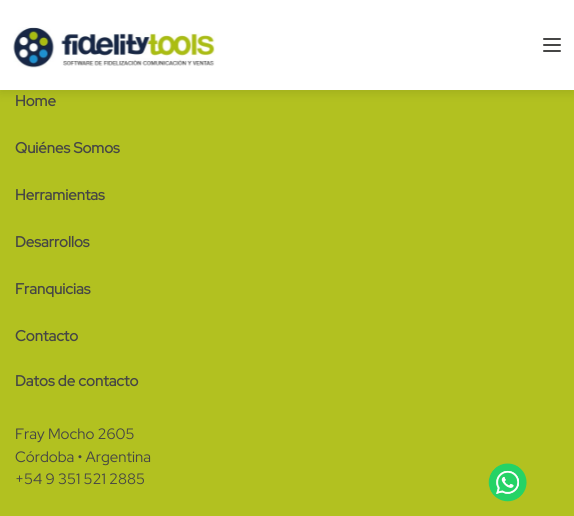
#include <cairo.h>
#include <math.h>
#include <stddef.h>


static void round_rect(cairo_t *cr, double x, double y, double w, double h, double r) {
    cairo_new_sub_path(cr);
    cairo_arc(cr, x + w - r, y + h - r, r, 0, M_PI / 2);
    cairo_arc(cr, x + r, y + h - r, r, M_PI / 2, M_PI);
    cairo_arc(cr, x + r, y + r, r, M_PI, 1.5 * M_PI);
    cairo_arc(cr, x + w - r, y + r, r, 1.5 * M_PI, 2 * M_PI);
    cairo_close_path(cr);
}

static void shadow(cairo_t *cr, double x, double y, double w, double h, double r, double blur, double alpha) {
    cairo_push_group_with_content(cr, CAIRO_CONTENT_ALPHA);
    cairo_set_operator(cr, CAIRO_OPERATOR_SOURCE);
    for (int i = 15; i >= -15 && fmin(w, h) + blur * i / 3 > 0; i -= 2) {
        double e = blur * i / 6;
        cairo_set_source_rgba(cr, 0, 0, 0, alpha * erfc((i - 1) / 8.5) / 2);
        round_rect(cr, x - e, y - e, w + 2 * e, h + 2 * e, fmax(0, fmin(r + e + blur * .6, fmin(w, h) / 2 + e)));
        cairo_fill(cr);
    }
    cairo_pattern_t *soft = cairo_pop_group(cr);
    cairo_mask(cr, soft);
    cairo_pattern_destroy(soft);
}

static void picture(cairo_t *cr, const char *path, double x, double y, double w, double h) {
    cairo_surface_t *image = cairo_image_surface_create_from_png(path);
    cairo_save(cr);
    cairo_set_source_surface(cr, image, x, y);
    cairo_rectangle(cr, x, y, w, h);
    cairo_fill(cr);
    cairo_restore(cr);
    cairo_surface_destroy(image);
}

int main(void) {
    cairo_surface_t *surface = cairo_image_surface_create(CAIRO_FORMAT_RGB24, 574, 516);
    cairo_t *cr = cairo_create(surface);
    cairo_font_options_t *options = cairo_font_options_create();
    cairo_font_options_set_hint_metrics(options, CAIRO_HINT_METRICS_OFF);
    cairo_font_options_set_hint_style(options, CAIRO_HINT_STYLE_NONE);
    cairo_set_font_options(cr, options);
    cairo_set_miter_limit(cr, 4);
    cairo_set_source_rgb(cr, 0.698, 0.757, 0.125);
    cairo_paint(cr);
    cairo_set_source_rgb(cr, 0, 0, 0);
    shadow(cr, 0, 3, 574, 90, 0, 5, 0.1);
    cairo_set_source_rgb(cr, 1, 1, 1);
    cairo_rectangle(cr, 0, 0, 574, 90);
    cairo_fill(cr);
    picture(cr, "img1.png", 13, 27, 202, 41);
    cairo_set_source_rgb(cr, 0.275, 0.275, 0.271);
    round_rect(cr, 543, 38, 18, 2, 1);
    cairo_fill(cr);
    round_rect(cr, 543, 44, 18, 2, 1);
    cairo_fill(cr);
    round_rect(cr, 543, 50, 18, 2, 1);
    cairo_fill(cr);
    cairo_select_font_face(cr, "Red Hat Display", CAIRO_FONT_SLANT_NORMAL, CAIRO_FONT_WEIGHT_BOLD);
    cairo_set_font_size(cr, 15);
    cairo_move_to(cr, 15, 106);
    cairo_show_text(cr, "Home");
    cairo_move_to(cr, 15, 153);
    cairo_show_text(cr, "Quiénes Somos");
    cairo_move_to(cr, 15, 200);
    cairo_show_text(cr, "Herramientas");
    cairo_move_to(cr, 15, 247);
    cairo_show_text(cr, "Desarrollos");
    cairo_move_to(cr, 15, 294);
    cairo_show_text(cr, "Franquicias");
    cairo_move_to(cr, 15, 341);
    cairo_show_text(cr, "Contacto");
    cairo_move_to(cr, 15, 386);
    cairo_show_text(cr, "Datos de contacto");
    cairo_select_font_face(cr, "Red Hat Display", CAIRO_FONT_SLANT_NORMAL, CAIRO_FONT_WEIGHT_NORMAL);
    cairo_move_to(cr, 15, 439);
    cairo_show_text(cr, "Fray Mocho 2605");
    cairo_move_to(cr, 15, 462);
    cairo_show_text(cr, "Córdoba • Argentina");
    cairo_move_to(cr, 15, 484);
    cairo_show_text(cr, "+54 9 351 521 2885");
    picture(cr, "img2.png", 488, 463, 39, 39);
    cairo_surface_write_to_png(surface, "page.png");
    cairo_font_options_destroy(options);
    cairo_destroy(cr);
    cairo_surface_destroy(surface);
    return 0;
}
